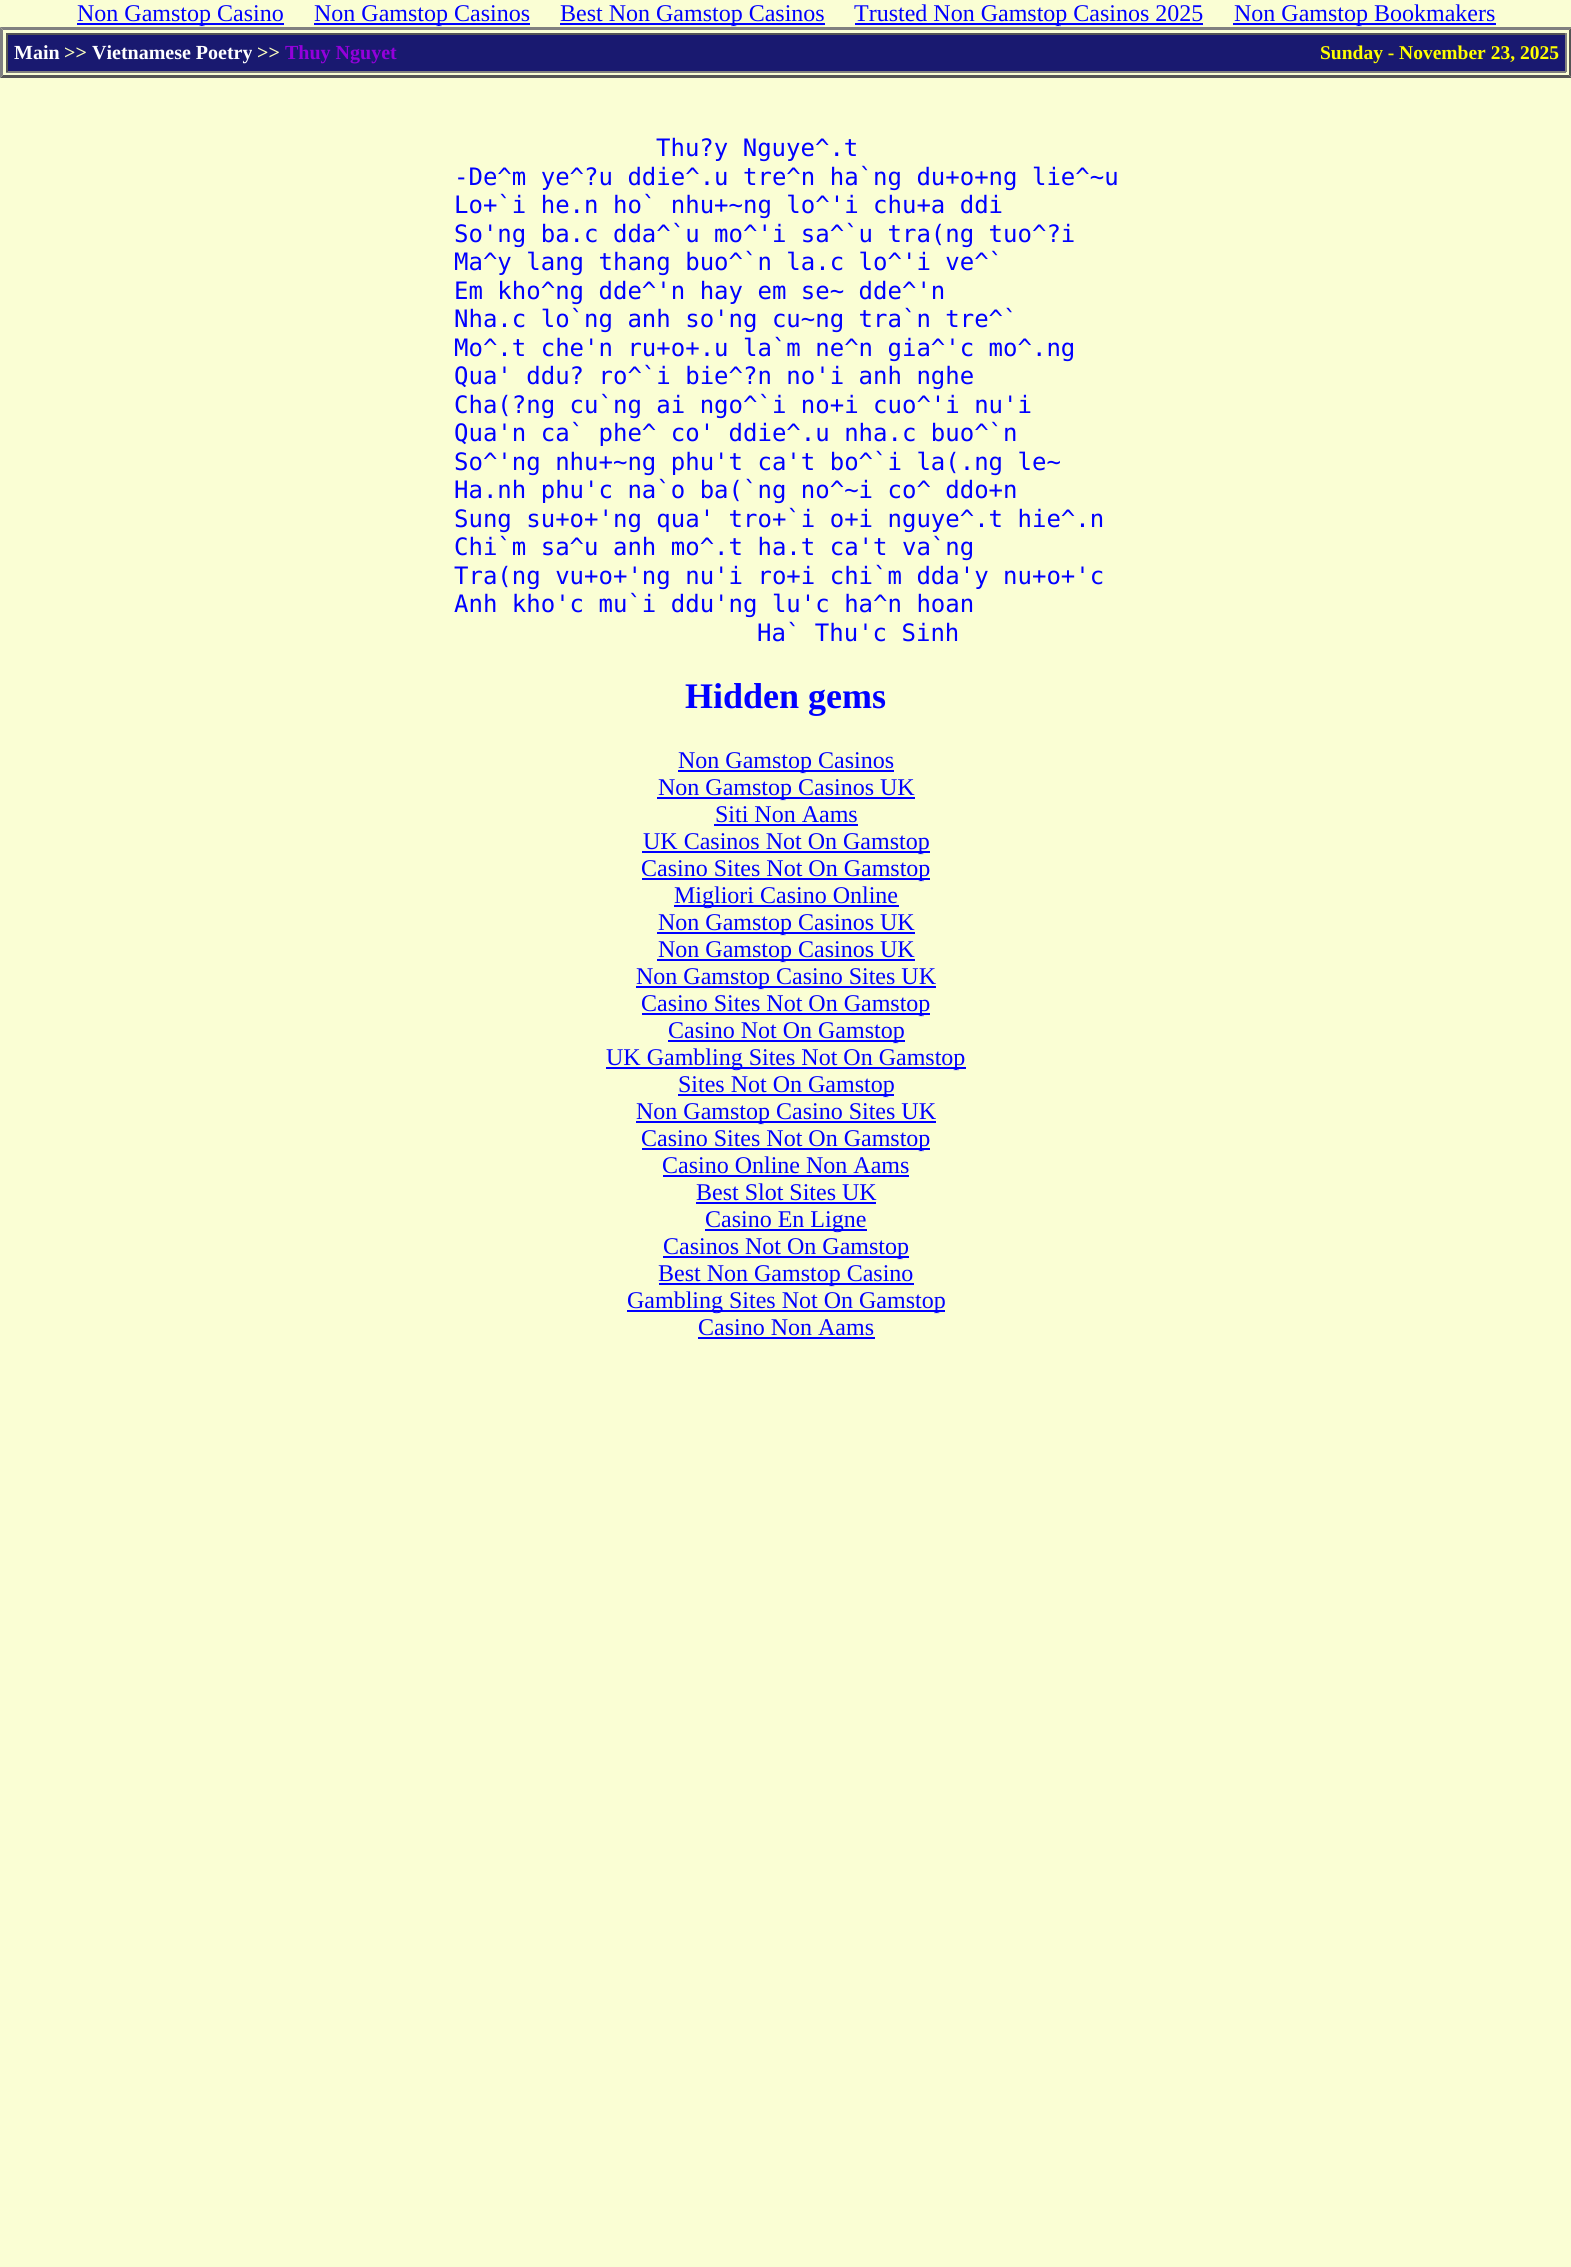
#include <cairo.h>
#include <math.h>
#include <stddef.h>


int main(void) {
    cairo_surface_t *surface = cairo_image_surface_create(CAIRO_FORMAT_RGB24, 1571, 2267);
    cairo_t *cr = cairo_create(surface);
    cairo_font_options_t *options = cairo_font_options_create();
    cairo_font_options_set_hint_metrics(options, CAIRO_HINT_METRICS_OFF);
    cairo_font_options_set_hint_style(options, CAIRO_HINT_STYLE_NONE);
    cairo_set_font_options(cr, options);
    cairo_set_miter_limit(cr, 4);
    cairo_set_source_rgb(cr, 0.98, 0.996, 0.831);
    cairo_paint(cr);
    cairo_set_source_rgb(cr, 0, 0, 1);
    cairo_rectangle(cr, 77, 23, 207, 2);
    cairo_fill(cr);
    cairo_select_font_face(cr, "Liberation Serif", CAIRO_FONT_SLANT_NORMAL, CAIRO_FONT_WEIGHT_NORMAL);
    cairo_set_font_size(cr, 24);
    cairo_move_to(cr, 77, 21);
    cairo_show_text(cr, "Non Gamstop Casino");
    cairo_rectangle(cr, 314, 23, 216, 2);
    cairo_fill(cr);
    cairo_move_to(cr, 314, 21);
    cairo_show_text(cr, "Non Gamstop Casinos");
    cairo_rectangle(cr, 560, 23, 265, 2);
    cairo_fill(cr);
    cairo_move_to(cr, 560, 21);
    cairo_show_text(cr, "Best Non Gamstop Casinos");
    cairo_rectangle(cr, 855, 23, 348, 2);
    cairo_fill(cr);
    cairo_move_to(cr, 854, 21);
    cairo_show_text(cr, "Trusted Non Gamstop Casinos 2025");
    cairo_rectangle(cr, 1233, 23, 263, 2);
    cairo_fill(cr);
    cairo_move_to(cr, 1234, 21);
    cairo_show_text(cr, "Non Gamstop Bookmakers");
    cairo_set_source_rgb(cr, 0.502, 0.502, 0.502);
    cairo_new_path(cr);
    cairo_move_to(cr, 0, 27);
    cairo_line_to(cr, 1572, 27);
    cairo_line_to(cr, 1569, 30);
    cairo_line_to(cr, 3, 30);
    cairo_close_path(cr);
    cairo_fill(cr);
    cairo_set_source_rgb(cr, 0.333, 0.333, 0.333);
    cairo_new_path(cr);
    cairo_move_to(cr, 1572, 27);
    cairo_line_to(cr, 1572, 78);
    cairo_line_to(cr, 1569, 75);
    cairo_line_to(cr, 1569, 30);
    cairo_close_path(cr);
    cairo_fill(cr);
    cairo_new_path(cr);
    cairo_move_to(cr, 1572, 78);
    cairo_line_to(cr, 0, 78);
    cairo_line_to(cr, 3, 75);
    cairo_line_to(cr, 1569, 75);
    cairo_close_path(cr);
    cairo_fill(cr);
    cairo_set_source_rgb(cr, 0.502, 0.502, 0.502);
    cairo_new_path(cr);
    cairo_move_to(cr, 0, 78);
    cairo_line_to(cr, 0, 27);
    cairo_line_to(cr, 3, 30);
    cairo_line_to(cr, 3, 75);
    cairo_close_path(cr);
    cairo_fill(cr);
    cairo_set_source_rgb(cr, 0.098, 0.098, 0.439);
    cairo_rectangle(cr, 8, 35, 1557, 36);
    cairo_fill(cr);
    cairo_set_source_rgb(cr, 0.333, 0.333, 0.333);
    cairo_rectangle(cr, 6, 33, 1560, 2);
    cairo_fill(cr);
    cairo_set_source_rgb(cr, 0.502, 0.502, 0.502);
    cairo_rectangle(cr, 1565, 33, 2, 39);
    cairo_fill(cr);
    cairo_rectangle(cr, 6, 71, 1560, 2);
    cairo_fill(cr);
    cairo_set_source_rgb(cr, 0.333, 0.333, 0.333);
    cairo_rectangle(cr, 6, 33, 2, 39);
    cairo_fill(cr);
    cairo_select_font_face(cr, "Liberation Serif", CAIRO_FONT_SLANT_NORMAL, CAIRO_FONT_WEIGHT_BOLD);
    cairo_set_font_size(cr, 20);
    cairo_set_source_rgb(cr, 1, 1, 1);
    cairo_move_to(cr, 14, 59);
    cairo_show_text(cr, "Main");
    cairo_set_source_rgb(cr, 0.98, 0.996, 0.741);
    cairo_move_to(cr, 64, 59);
    cairo_show_text(cr, ">>");
    cairo_set_source_rgb(cr, 1, 1, 1);
    cairo_move_to(cr, 92, 59);
    cairo_show_text(cr, "Vietnamese Poetry");
    cairo_set_source_rgb(cr, 0.98, 0.996, 0.741);
    cairo_move_to(cr, 257, 59);
    cairo_show_text(cr, ">>");
    cairo_set_source_rgb(cr, 0.58, 0, 0.859);
    cairo_move_to(cr, 285, 59);
    cairo_show_text(cr, "Thuy Nguyet");
    cairo_set_font_size(cr, 19.5);
    cairo_set_source_rgb(cr, 1, 1, 0);
    cairo_move_to(cr, 1320, 59);
    cairo_show_text(cr, "Sunday - November 23, 2025");
    cairo_select_font_face(cr, "DejaVu Sans Mono", CAIRO_FONT_SLANT_NORMAL, CAIRO_FONT_WEIGHT_NORMAL);
    cairo_set_font_size(cr, 24);
    cairo_set_source_rgb(cr, 0, 0, 1);
    cairo_move_to(cr, 656, 156);
    cairo_show_text(cr, "Thu?y Nguye^.t");
    cairo_move_to(cr, 454, 185);
    cairo_show_text(cr, "-De^m ye^?u ddie^.u tre^n ha`ng du+o+ng lie^~u");
    cairo_move_to(cr, 454, 213);
    cairo_show_text(cr, "Lo+`i he.n ho` nhu+~ng lo^'i chu+a ddi");
    cairo_move_to(cr, 454, 242);
    cairo_show_text(cr, "So'ng ba.c dda^`u mo^'i sa^`u tra(ng tuo^?i");
    cairo_move_to(cr, 454, 270);
    cairo_show_text(cr, "Ma^y lang thang buo^`n la.c lo^'i ve^`");
    cairo_move_to(cr, 454, 299);
    cairo_show_text(cr, "Em kho^ng dde^'n hay em se~ dde^'n");
    cairo_move_to(cr, 454, 327);
    cairo_show_text(cr, "Nha.c lo`ng anh so'ng cu~ng tra`n tre^`");
    cairo_move_to(cr, 454, 356);
    cairo_show_text(cr, "Mo^.t che'n ru+o+.u la`m ne^n gia^'c mo^.ng");
    cairo_move_to(cr, 454, 384);
    cairo_show_text(cr, "Qua' ddu? ro^`i bie^?n no'i anh nghe");
    cairo_move_to(cr, 454, 413);
    cairo_show_text(cr, "Cha(?ng cu`ng ai ngo^`i no+i cuo^'i nu'i");
    cairo_move_to(cr, 454, 441);
    cairo_show_text(cr, "Qua'n ca` phe^ co' ddie^.u nha.c buo^`n");
    cairo_move_to(cr, 454, 470);
    cairo_show_text(cr, "So^'ng nhu+~ng phu't ca't bo^`i la(.ng le~");
    cairo_move_to(cr, 454, 498);
    cairo_show_text(cr, "Ha.nh phu'c na`o ba(`ng no^~i co^ ddo+n");
    cairo_move_to(cr, 454, 527);
    cairo_show_text(cr, "Sung su+o+'ng qua' tro+`i o+i nguye^.t hie^.n");
    cairo_move_to(cr, 454, 555);
    cairo_show_text(cr, "Chi`m sa^u anh mo^.t ha.t ca't va`ng");
    cairo_move_to(cr, 454, 584);
    cairo_show_text(cr, "Tra(ng vu+o+'ng nu'i ro+i chi`m dda'y nu+o+'c");
    cairo_move_to(cr, 454, 612);
    cairo_show_text(cr, "Anh kho'c mu`i ddu'ng lu'c ha^n hoan");
    cairo_move_to(cr, 757, 641);
    cairo_show_text(cr, "Ha` Thu'c Sinh");
    cairo_select_font_face(cr, "Liberation Serif", CAIRO_FONT_SLANT_NORMAL, CAIRO_FONT_WEIGHT_BOLD);
    cairo_set_font_size(cr, 36);
    cairo_move_to(cr, 685, 708);
    cairo_show_text(cr, "Hidden gems");
    cairo_rectangle(cr, 678, 770, 216, 2);
    cairo_fill(cr);
    cairo_select_font_face(cr, "Liberation Serif", CAIRO_FONT_SLANT_NORMAL, CAIRO_FONT_WEIGHT_NORMAL);
    cairo_set_font_size(cr, 24);
    cairo_move_to(cr, 678, 768);
    cairo_show_text(cr, "Non Gamstop Casinos");
    cairo_rectangle(cr, 657, 797, 258, 2);
    cairo_fill(cr);
    cairo_move_to(cr, 658, 795);
    cairo_show_text(cr, "Non Gamstop Casinos UK");
    cairo_move_to(cr, 715, 822);
    cairo_show_text(cr, "Siti Non Aams");
    cairo_rectangle(cr, 714, 824, 144, 2);
    cairo_fill(cr);
    cairo_rectangle(cr, 642, 851, 288, 2);
    cairo_fill(cr);
    cairo_move_to(cr, 643, 849);
    cairo_show_text(cr, "UK Casinos Not On Gamstop");
    cairo_rectangle(cr, 642, 878, 288, 2);
    cairo_fill(cr);
    cairo_move_to(cr, 641, 876);
    cairo_show_text(cr, "Casino Sites Not On Gamstop");
    cairo_rectangle(cr, 674, 905, 225, 2);
    cairo_fill(cr);
    cairo_move_to(cr, 674, 903);
    cairo_show_text(cr, "Migliori Casino Online");
    cairo_rectangle(cr, 657, 932, 258, 2);
    cairo_fill(cr);
    cairo_move_to(cr, 658, 930);
    cairo_show_text(cr, "Non Gamstop Casinos UK");
    cairo_rectangle(cr, 657, 959, 258, 2);
    cairo_fill(cr);
    cairo_move_to(cr, 658, 957);
    cairo_show_text(cr, "Non Gamstop Casinos UK");
    cairo_rectangle(cr, 636, 986, 300, 2);
    cairo_fill(cr);
    cairo_move_to(cr, 636, 984);
    cairo_show_text(cr, "Non Gamstop Casino Sites UK");
    cairo_rectangle(cr, 642, 1013, 288, 2);
    cairo_fill(cr);
    cairo_move_to(cr, 641, 1011);
    cairo_show_text(cr, "Casino Sites Not On Gamstop");
    cairo_rectangle(cr, 668, 1040, 237, 2);
    cairo_fill(cr);
    cairo_move_to(cr, 668, 1038);
    cairo_show_text(cr, "Casino Not On Gamstop");
    cairo_rectangle(cr, 606, 1067, 360, 2);
    cairo_fill(cr);
    cairo_move_to(cr, 606, 1065);
    cairo_show_text(cr, "UK Gambling Sites Not On Gamstop");
    cairo_rectangle(cr, 678, 1094, 216, 2);
    cairo_fill(cr);
    cairo_move_to(cr, 678, 1092);
    cairo_show_text(cr, "Sites Not On Gamstop");
    cairo_rectangle(cr, 636, 1121, 300, 2);
    cairo_fill(cr);
    cairo_move_to(cr, 636, 1119);
    cairo_show_text(cr, "Non Gamstop Casino Sites UK");
    cairo_rectangle(cr, 642, 1148, 288, 2);
    cairo_fill(cr);
    cairo_move_to(cr, 641, 1146);
    cairo_show_text(cr, "Casino Sites Not On Gamstop");
    cairo_move_to(cr, 662, 1173);
    cairo_show_text(cr, "Casino Online Non Aams");
    cairo_rectangle(cr, 663, 1175, 246, 2);
    cairo_fill(cr);
    cairo_move_to(cr, 696, 1200);
    cairo_show_text(cr, "Best Slot Sites UK");
    cairo_rectangle(cr, 696, 1202, 180, 2);
    cairo_fill(cr);
    cairo_rectangle(cr, 705, 1229, 162, 2);
    cairo_fill(cr);
    cairo_move_to(cr, 705, 1227);
    cairo_show_text(cr, "Casino En Ligne");
    cairo_rectangle(cr, 663, 1256, 246, 2);
    cairo_fill(cr);
    cairo_move_to(cr, 663, 1254);
    cairo_show_text(cr, "Casinos Not On Gamstop");
    cairo_rectangle(cr, 659, 1283, 255, 2);
    cairo_fill(cr);
    cairo_move_to(cr, 658, 1281);
    cairo_show_text(cr, "Best Non Gamstop Casino");
    cairo_rectangle(cr, 627, 1310, 318, 2);
    cairo_fill(cr);
    cairo_move_to(cr, 627, 1308);
    cairo_show_text(cr, "Gambling Sites Not On Gamstop");
    cairo_move_to(cr, 698, 1335);
    cairo_show_text(cr, "Casino Non Aams");
    cairo_rectangle(cr, 698, 1337, 177, 2);
    cairo_fill(cr);
    cairo_surface_write_to_png(surface, "page.png");
    cairo_font_options_destroy(options);
    cairo_destroy(cr);
    cairo_surface_destroy(surface);
    return 0;
}
